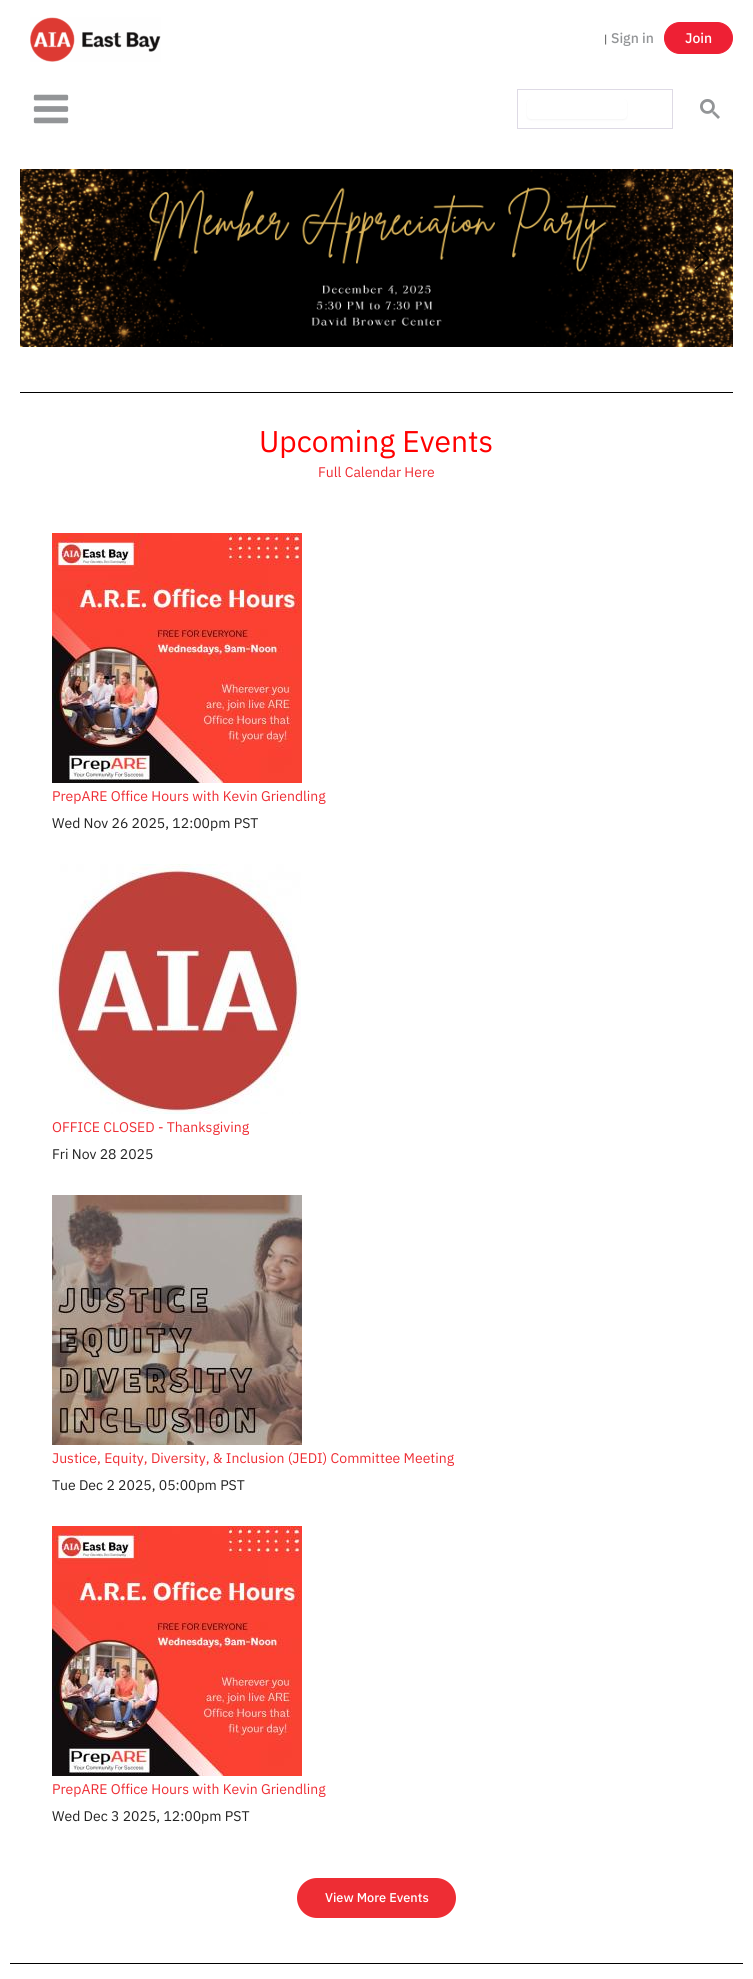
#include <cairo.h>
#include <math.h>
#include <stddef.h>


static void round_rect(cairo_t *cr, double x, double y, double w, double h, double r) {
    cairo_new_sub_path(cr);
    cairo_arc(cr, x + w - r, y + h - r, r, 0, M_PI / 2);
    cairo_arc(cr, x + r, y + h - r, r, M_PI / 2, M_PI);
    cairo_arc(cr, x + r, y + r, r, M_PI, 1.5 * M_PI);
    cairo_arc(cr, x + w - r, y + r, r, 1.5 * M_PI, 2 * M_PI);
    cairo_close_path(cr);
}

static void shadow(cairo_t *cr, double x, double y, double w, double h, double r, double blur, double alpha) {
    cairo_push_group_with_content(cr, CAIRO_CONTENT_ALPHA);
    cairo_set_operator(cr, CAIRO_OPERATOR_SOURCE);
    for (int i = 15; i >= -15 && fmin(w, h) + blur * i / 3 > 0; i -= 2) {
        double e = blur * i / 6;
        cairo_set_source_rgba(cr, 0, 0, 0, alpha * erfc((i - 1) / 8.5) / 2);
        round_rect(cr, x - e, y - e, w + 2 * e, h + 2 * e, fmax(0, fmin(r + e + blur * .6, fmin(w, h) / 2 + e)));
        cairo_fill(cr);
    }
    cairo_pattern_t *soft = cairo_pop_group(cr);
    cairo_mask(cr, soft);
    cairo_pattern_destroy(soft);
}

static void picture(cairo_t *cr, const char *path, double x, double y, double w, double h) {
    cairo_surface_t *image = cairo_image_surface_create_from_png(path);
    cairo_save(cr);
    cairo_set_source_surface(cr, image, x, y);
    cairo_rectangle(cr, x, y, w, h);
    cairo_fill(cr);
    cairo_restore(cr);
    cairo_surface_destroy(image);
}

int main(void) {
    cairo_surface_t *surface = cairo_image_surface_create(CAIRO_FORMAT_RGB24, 753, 1979);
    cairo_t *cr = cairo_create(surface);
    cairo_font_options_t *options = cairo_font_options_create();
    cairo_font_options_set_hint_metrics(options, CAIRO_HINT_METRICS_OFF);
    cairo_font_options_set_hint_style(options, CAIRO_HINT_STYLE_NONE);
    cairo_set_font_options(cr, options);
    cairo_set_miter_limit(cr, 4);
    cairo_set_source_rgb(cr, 1, 1, 1);
    cairo_paint(cr);
    picture(cr, "img1.png", 30, 17, 131, 45);
    cairo_select_font_face(cr, "IBM Plex Sans", CAIRO_FONT_SLANT_NORMAL, CAIRO_FONT_WEIGHT_NORMAL);
    cairo_set_font_size(cr, 11);
    cairo_set_source_rgb(cr, 0.133, 0.133, 0.133);
    cairo_move_to(cr, 604, 43);
    cairo_show_text(cr, "|");
    cairo_select_font_face(cr, "IBM Plex Sans Medium", CAIRO_FONT_SLANT_NORMAL, CAIRO_FONT_WEIGHT_NORMAL);
    cairo_set_font_size(cr, 14);
    cairo_set_source_rgb(cr, 0.576, 0.584, 0.592);
    cairo_move_to(cr, 611, 43);
    cairo_show_text(cr, "Sign in");
    cairo_set_source_rgb(cr, 0.933, 0.125, 0.204);
    round_rect(cr, 664.5, 22.5, 68, 31, 15.5);
    cairo_fill_preserve(cr);
    cairo_set_line_width(cr, 1);
    cairo_stroke(cr);
    cairo_set_source_rgb(cr, 1, 1, 1);
    cairo_move_to(cr, 685, 43);
    cairo_show_text(cr, "Join");
    picture(cr, "img2.png", 33, 94, 36, 30);
    cairo_rectangle(cr, 517.5, 89.5, 155, 39);
    cairo_set_source_rgb(cr, 0.871, 0.855, 0.898);
    cairo_stroke(cr);
    cairo_set_source_rgb(cr, 0, 0, 0);
    shadow(cr, 527, 100, 100, 20, 4, 1, 0.05);
    cairo_set_source_rgb(cr, 1, 1, 1);
    round_rect(cr, 527, 99, 100, 20, 4);
    cairo_fill(cr);
    picture(cr, "img3.png", 700, 99, 20, 20);
    picture(cr, "img4.png", 20, 169, 713, 178);
    picture(cr, "img5.png", 44, 246, 14, 24);
    picture(cr, "img6.png", 695, 246, 14, 24);
    cairo_set_source_rgb(cr, 0, 0, 0);
    cairo_rectangle(cr, 20, 392, 713, 1);
    cairo_fill(cr);
    cairo_select_font_face(cr, "IBM Plex Sans", CAIRO_FONT_SLANT_NORMAL, CAIRO_FONT_WEIGHT_NORMAL);
    cairo_set_font_size(cr, 30);
    cairo_set_source_rgb(cr, 1, 0, 0);
    cairo_move_to(cr, 259, 452);
    cairo_show_text(cr, "Upcoming Events");
    cairo_set_font_size(cr, 14);
    cairo_set_source_rgb(cr, 0.933, 0.176, 0.204);
    cairo_move_to(cr, 318, 477);
    cairo_show_text(cr, "Full Calendar Here");
    picture(cr, "img7.png", 52, 533, 250, 250);
    cairo_move_to(cr, 52, 801);
    cairo_show_text(cr, "PrepARE Office Hours with Kevin Griendling");
    cairo_set_source_rgb(cr, 0.133, 0.133, 0.133);
    cairo_move_to(cr, 52, 828);
    cairo_show_text(cr, "Wed Nov 26 2025, 12:00pm PST");
    picture(cr, "img8.png", 52, 864, 249, 250);
    cairo_set_source_rgb(cr, 0.933, 0.176, 0.204);
    cairo_move_to(cr, 52, 1132);
    cairo_show_text(cr, "OFFICE CLOSED - Thanksgiving");
    cairo_set_source_rgb(cr, 0.133, 0.133, 0.133);
    cairo_move_to(cr, 52, 1159);
    cairo_show_text(cr, "Fri Nov 28 2025");
    picture(cr, "img9.png", 52, 1195, 250, 250);
    cairo_set_source_rgb(cr, 0.933, 0.176, 0.204);
    cairo_move_to(cr, 52, 1463);
    cairo_show_text(cr, "Justice, Equity, Diversity, & Inclusion (JEDI) Committee Meeting");
    cairo_set_source_rgb(cr, 0.133, 0.133, 0.133);
    cairo_move_to(cr, 52, 1490);
    cairo_show_text(cr, "Tue Dec 2 2025, 05:00pm PST");
    picture(cr, "img7.png", 52, 1526, 250, 250);
    cairo_set_source_rgb(cr, 0.933, 0.176, 0.204);
    cairo_move_to(cr, 52, 1794);
    cairo_show_text(cr, "PrepARE Office Hours with Kevin Griendling");
    cairo_set_source_rgb(cr, 0.133, 0.133, 0.133);
    cairo_move_to(cr, 52, 1821);
    cairo_show_text(cr, "Wed Dec 3 2025, 12:00pm PST");
    cairo_set_source_rgb(cr, 0.933, 0.176, 0.204);
    round_rect(cr, 297, 1878, 159, 40, 20);
    cairo_fill(cr);
    cairo_select_font_face(cr, "IBM Plex Sans Medium", CAIRO_FONT_SLANT_NORMAL, CAIRO_FONT_WEIGHT_NORMAL);
    cairo_set_font_size(cr, 12.75);
    cairo_set_source_rgb(cr, 1, 1, 1);
    cairo_move_to(cr, 325, 1902);
    cairo_show_text(cr, "View More Events");
    cairo_set_source_rgb(cr, 0, 0, 0);
    cairo_rectangle(cr, 10, 1963, 733, 1);
    cairo_fill(cr);
    cairo_surface_write_to_png(surface, "page.png");
    cairo_font_options_destroy(options);
    cairo_destroy(cr);
    cairo_surface_destroy(surface);
    return 0;
}
